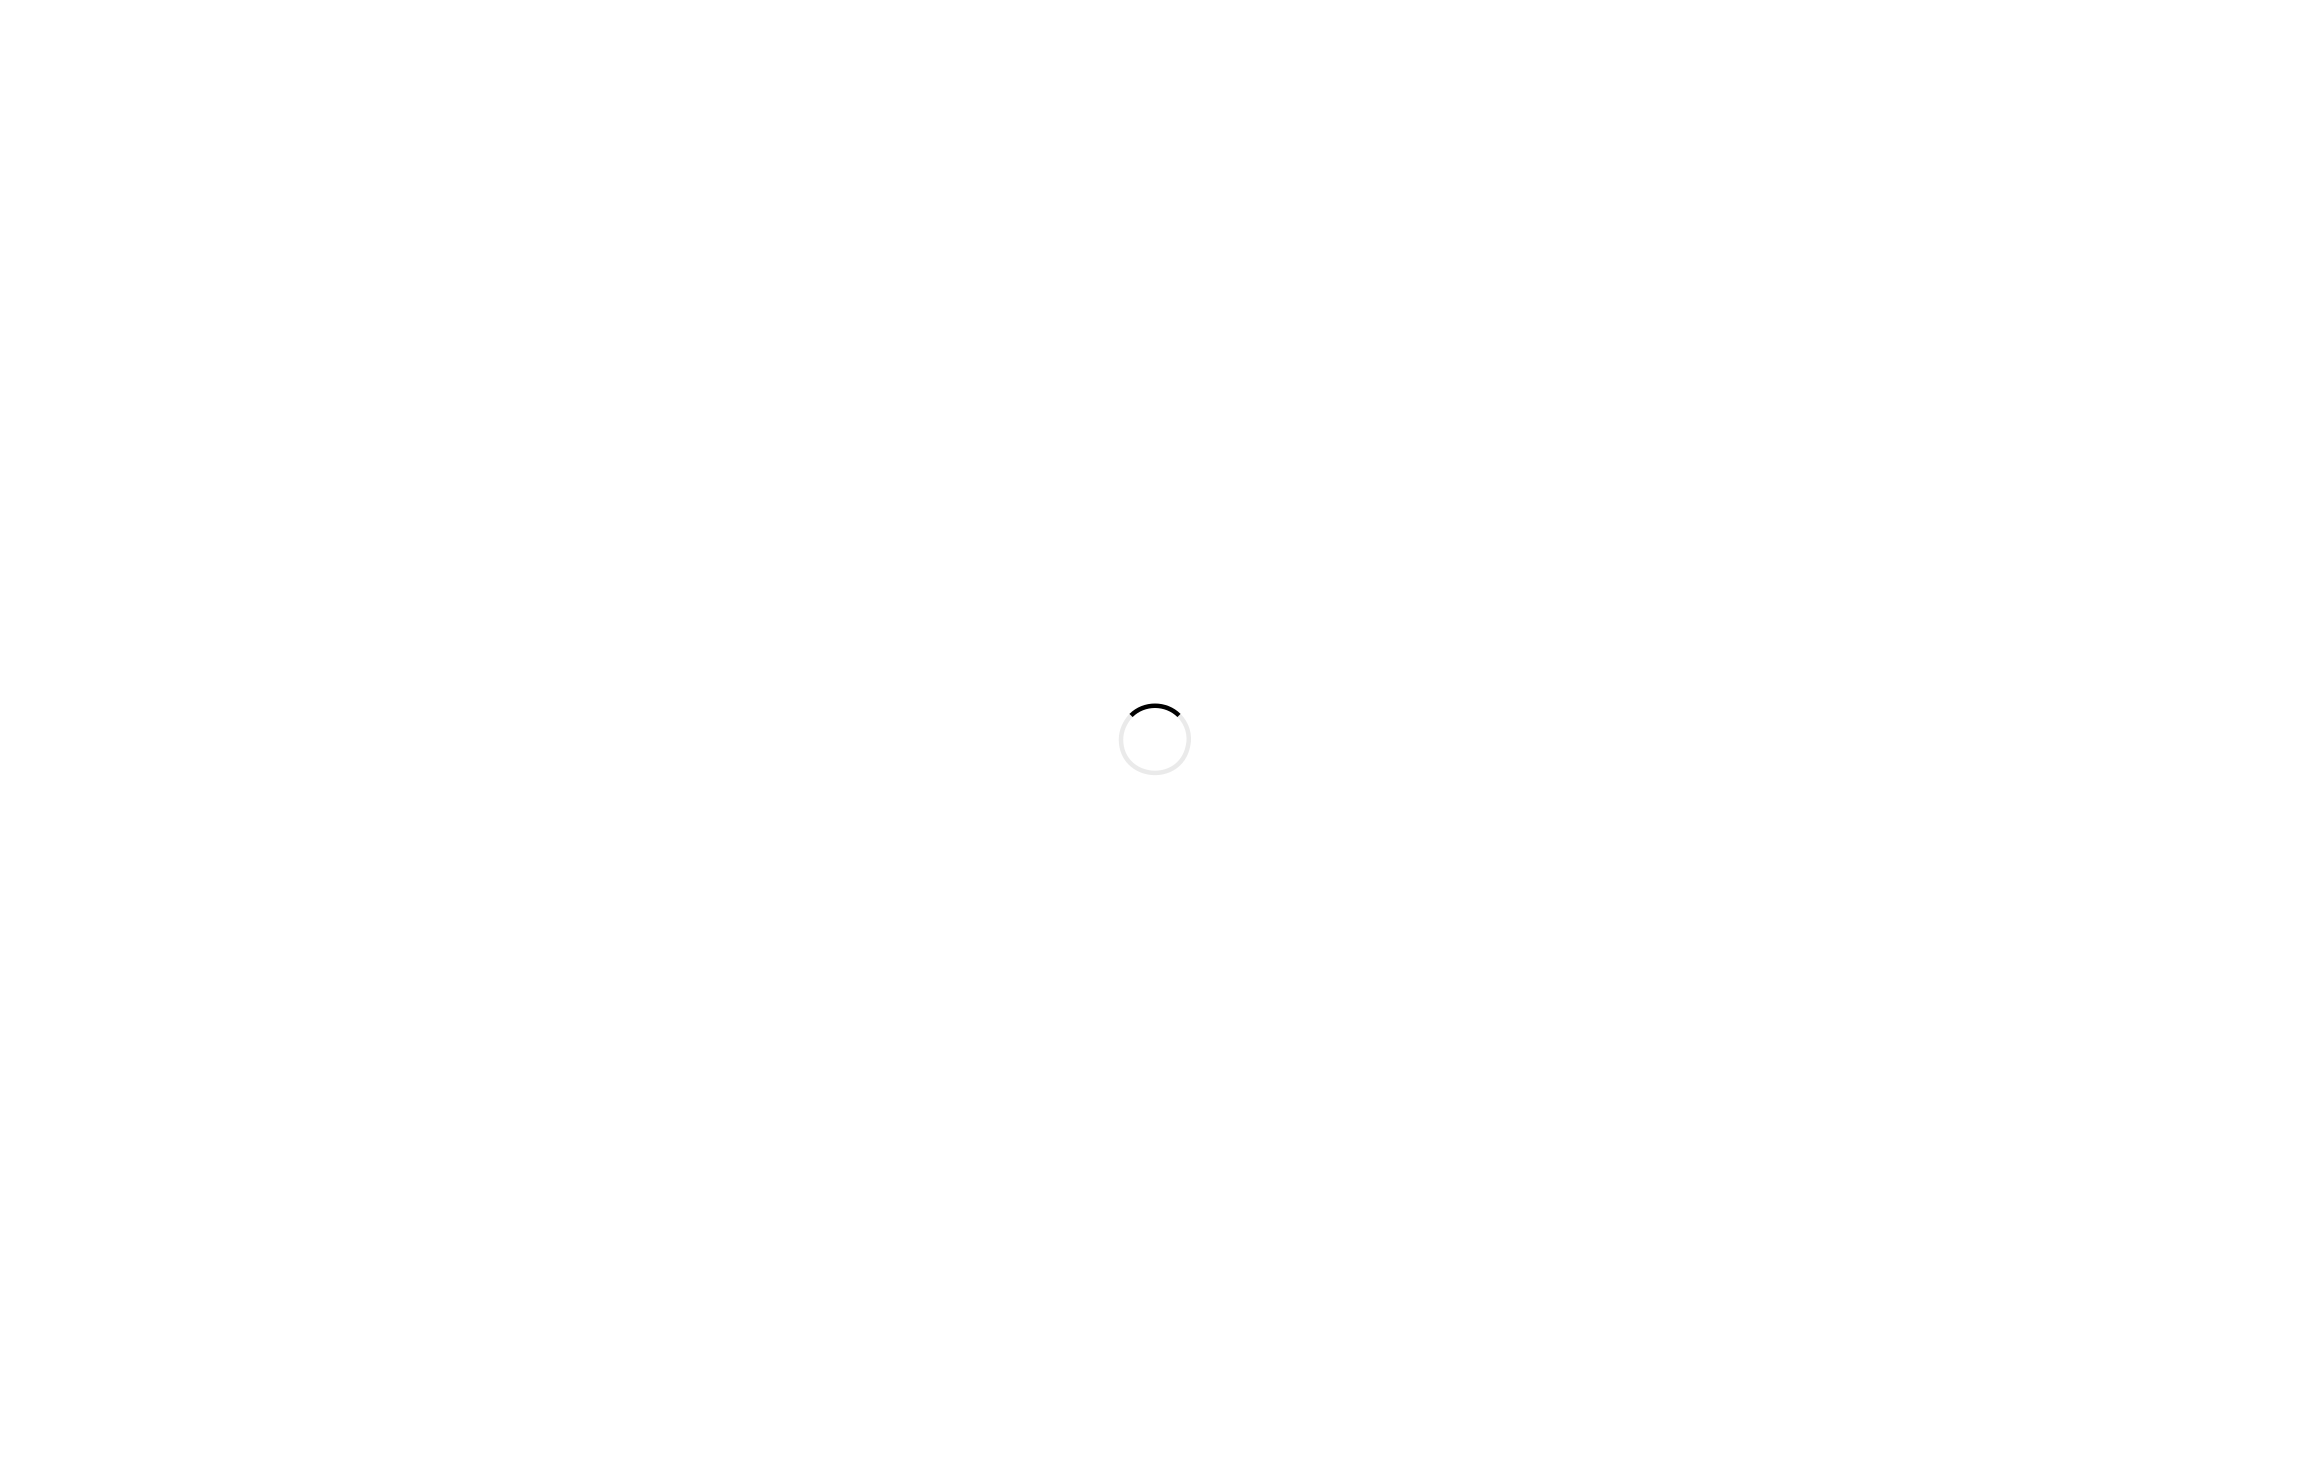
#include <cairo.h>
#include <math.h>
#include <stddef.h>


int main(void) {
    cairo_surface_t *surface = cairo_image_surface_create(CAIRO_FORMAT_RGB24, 2308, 1479);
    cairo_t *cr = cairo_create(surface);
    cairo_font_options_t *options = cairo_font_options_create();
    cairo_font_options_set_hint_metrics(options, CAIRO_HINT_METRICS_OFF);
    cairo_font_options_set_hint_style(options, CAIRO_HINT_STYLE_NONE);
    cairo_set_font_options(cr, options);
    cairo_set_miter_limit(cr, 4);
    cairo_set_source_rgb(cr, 1, 1, 1);
    cairo_paint(cr);
    cairo_new_path(cr);
    cairo_move_to(cr, 1131, 715.5);
    cairo_curve_to(cr, 1144, 702.5, 1166, 702.5, 1179, 715.5);
    cairo_set_source_rgb(cr, 0, 0, 0);
    cairo_set_line_width(cr, 4.5);
    cairo_stroke(cr);
    cairo_new_path(cr);
    cairo_move_to(cr, 1179, 715.5);
    cairo_curve_to(cr, 1187, 723.5, 1190.5, 735, 1188, 746);
    cairo_curve_to(cr, 1180, 785.5, 1121, 780, 1121, 739.5);
    cairo_curve_to(cr, 1121, 730.5, 1125, 722, 1131, 715.5);
    cairo_set_source_rgba(cr, 0.6, 0.6, 0.6, 0.2);
    cairo_stroke(cr);
    cairo_surface_write_to_png(surface, "page.png");
    cairo_font_options_destroy(options);
    cairo_destroy(cr);
    cairo_surface_destroy(surface);
    return 0;
}
